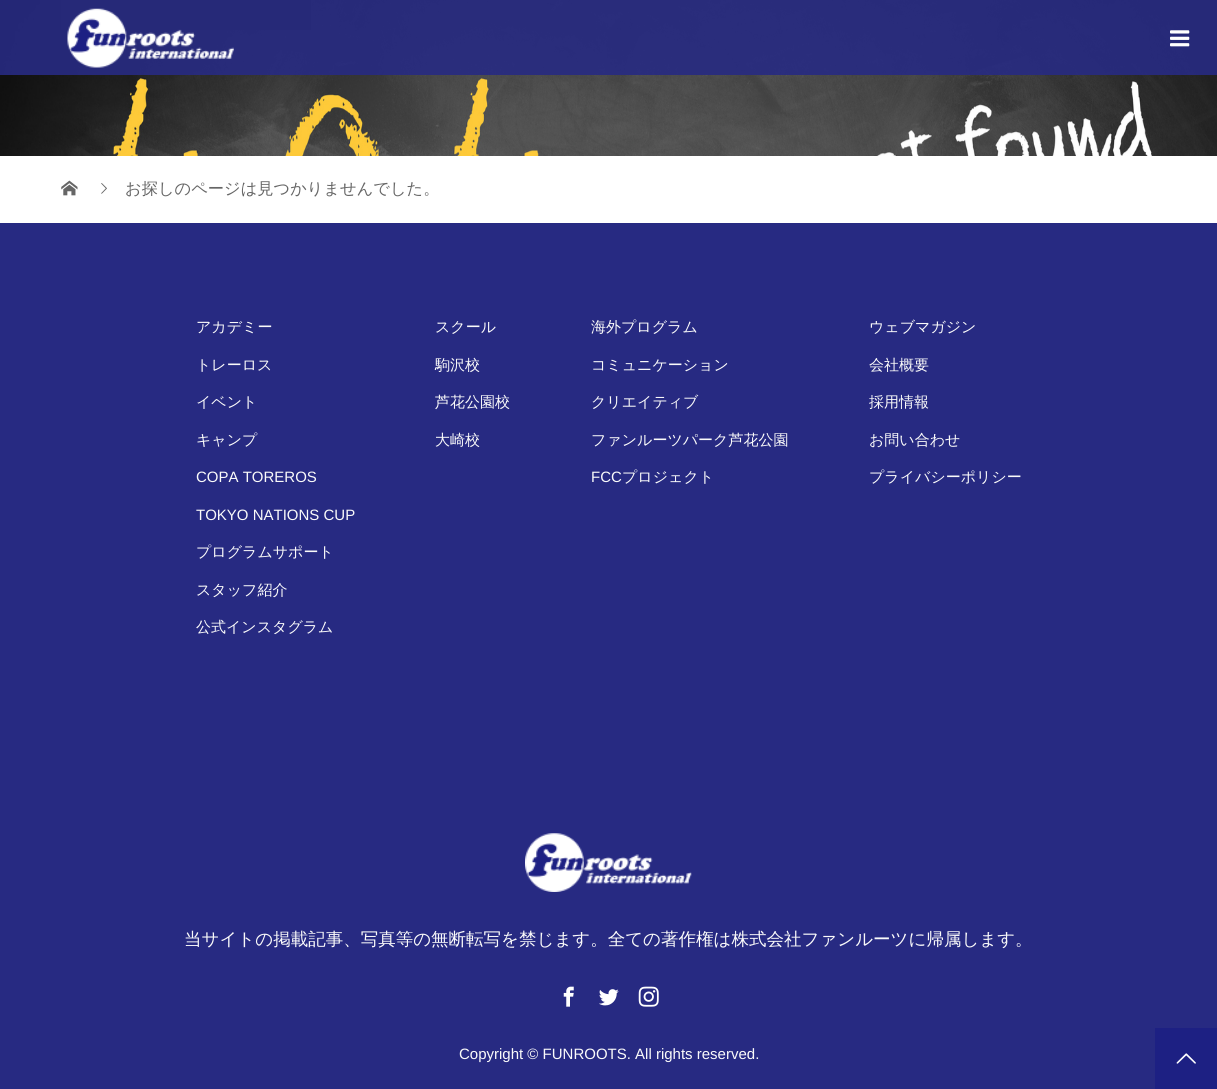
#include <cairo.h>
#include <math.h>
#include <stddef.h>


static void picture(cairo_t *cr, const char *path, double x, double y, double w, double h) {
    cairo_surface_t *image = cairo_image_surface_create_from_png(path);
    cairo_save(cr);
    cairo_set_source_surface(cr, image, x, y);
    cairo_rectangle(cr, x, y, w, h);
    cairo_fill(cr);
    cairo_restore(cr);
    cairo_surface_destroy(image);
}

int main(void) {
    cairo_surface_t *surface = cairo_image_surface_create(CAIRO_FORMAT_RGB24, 1217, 1089);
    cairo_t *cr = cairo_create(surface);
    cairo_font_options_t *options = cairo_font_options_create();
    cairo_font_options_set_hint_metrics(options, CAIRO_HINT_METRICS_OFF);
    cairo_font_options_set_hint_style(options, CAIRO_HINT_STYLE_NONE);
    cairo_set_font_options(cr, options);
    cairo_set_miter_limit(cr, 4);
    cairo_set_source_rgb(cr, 1, 1, 1);
    cairo_paint(cr);
    picture(cr, "img3.png", 0, 0, 1217, 156);
    cairo_set_source_rgb(cr, 0.133, 0.133, 0.133);
    cairo_rectangle(cr, 61, 0, 250, 30);
    cairo_fill(cr);
    cairo_set_source_rgba(cr, 0.153, 0.165, 0.51, 0.9);
    cairo_rectangle(cr, 0, 0, 1217, 75);
    cairo_fill(cr);
    picture(cr, "img1.png", 67, 8, 167, 60);
    picture(cr, "img2.png", 1170, 30, 20, 17);
    picture(cr, "img4.png", 61, 180, 17, 16);
    picture(cr, "img5.png", 101, 183, 6, 11);
    cairo_select_font_face(cr, "WenQuanYi Zen Hei Medium", CAIRO_FONT_SLANT_NORMAL, CAIRO_FONT_WEIGHT_NORMAL);
    cairo_set_font_size(cr, 16.25);
    cairo_set_source_rgb(cr, 0.4, 0.4, 0.4);
    cairo_move_to(cr, 125, 194);
    cairo_show_text(cr, "お探しのページは見つかりませんでした。");
    cairo_set_source_rgb(cr, 0.153, 0.165, 0.51);
    cairo_rectangle(cr, 0, 223, 1217, 866);
    cairo_fill(cr);
    cairo_set_font_size(cr, 15);
    cairo_set_source_rgb(cr, 0.98, 0.98, 0.98);
    cairo_move_to(cr, 196, 332);
    cairo_show_text(cr, "アカデミー");
    cairo_move_to(cr, 196, 370);
    cairo_show_text(cr, "トレーロス");
    cairo_move_to(cr, 196, 407);
    cairo_show_text(cr, "イベント");
    cairo_move_to(cr, 196, 445);
    cairo_show_text(cr, "キャンプ");
    cairo_select_font_face(cr, "Liberation Sans", CAIRO_FONT_SLANT_NORMAL, CAIRO_FONT_WEIGHT_NORMAL);
    cairo_move_to(cr, 196, 482);
    cairo_show_text(cr, "COPA TOREROS");
    cairo_move_to(cr, 196, 520);
    cairo_show_text(cr, "TOKYO NATIONS CUP");
    cairo_select_font_face(cr, "WenQuanYi Zen Hei Medium", CAIRO_FONT_SLANT_NORMAL, CAIRO_FONT_WEIGHT_NORMAL);
    cairo_move_to(cr, 196, 557);
    cairo_show_text(cr, "プログラムサポート");
    cairo_move_to(cr, 196, 595);
    cairo_show_text(cr, "スタッフ紹介");
    cairo_move_to(cr, 196, 632);
    cairo_show_text(cr, "公式インスタグラム");
    cairo_move_to(cr, 435, 332);
    cairo_show_text(cr, "スクール");
    cairo_move_to(cr, 435, 370);
    cairo_show_text(cr, "駒沢校");
    cairo_move_to(cr, 435, 407);
    cairo_show_text(cr, "芦花公園校");
    cairo_move_to(cr, 435, 445);
    cairo_show_text(cr, "大崎校");
    cairo_move_to(cr, 591, 332);
    cairo_show_text(cr, "海外プログラム");
    cairo_move_to(cr, 591, 370);
    cairo_show_text(cr, "コミュニケーション");
    cairo_move_to(cr, 591, 407);
    cairo_show_text(cr, "クリエイティブ");
    cairo_move_to(cr, 591, 445);
    cairo_show_text(cr, "ファンルーツパーク芦花公園");
    cairo_select_font_face(cr, "Liberation Sans", CAIRO_FONT_SLANT_NORMAL, CAIRO_FONT_WEIGHT_NORMAL);
    cairo_move_to(cr, 591, 482);
    cairo_show_text(cr, "FCC");
    cairo_select_font_face(cr, "WenQuanYi Zen Hei Medium", CAIRO_FONT_SLANT_NORMAL, CAIRO_FONT_WEIGHT_NORMAL);
    cairo_move_to(cr, 622, 482);
    cairo_show_text(cr, "プロジェクト");
    cairo_move_to(cr, 869, 332);
    cairo_show_text(cr, "ウェブマガジン");
    cairo_move_to(cr, 869, 370);
    cairo_show_text(cr, "会社概要");
    cairo_move_to(cr, 869, 407);
    cairo_show_text(cr, "採用情報");
    cairo_move_to(cr, 869, 445);
    cairo_show_text(cr, "お問い合わせ");
    cairo_move_to(cr, 869, 482);
    cairo_show_text(cr, "プライバシーポリシー");
    picture(cr, "img6.png", 525, 833, 167, 59);
    cairo_set_font_size(cr, 17.5);
    cairo_move_to(cr, 184, 945);
    cairo_show_text(cr, "当サイトの掲載記事、写真等の無断転写を禁じます。全ての著作権は株式会社ファンルーツに帰属します。");
    picture(cr, "img7.png", 563, 986, 11, 21);
    picture(cr, "img8.png", 599, 989, 20, 17);
    picture(cr, "img9.png", 638, 986, 21, 21);
    cairo_select_font_face(cr, "Liberation Sans", CAIRO_FONT_SLANT_NORMAL, CAIRO_FONT_WEIGHT_NORMAL);
    cairo_set_font_size(cr, 15);
    cairo_move_to(cr, 459, 1059);
    cairo_show_text(cr, "Copyright © FUNROOTS. All rights reserved.");
    cairo_set_source_rgb(cr, 0.114, 0.125, 0.514);
    cairo_rectangle(cr, 1155, 1028, 62, 61);
    cairo_fill(cr);
    picture(cr, "img10.png", 1176, 1053, 20, 11);
    cairo_surface_write_to_png(surface, "page.png");
    cairo_font_options_destroy(options);
    cairo_destroy(cr);
    cairo_surface_destroy(surface);
    return 0;
}
